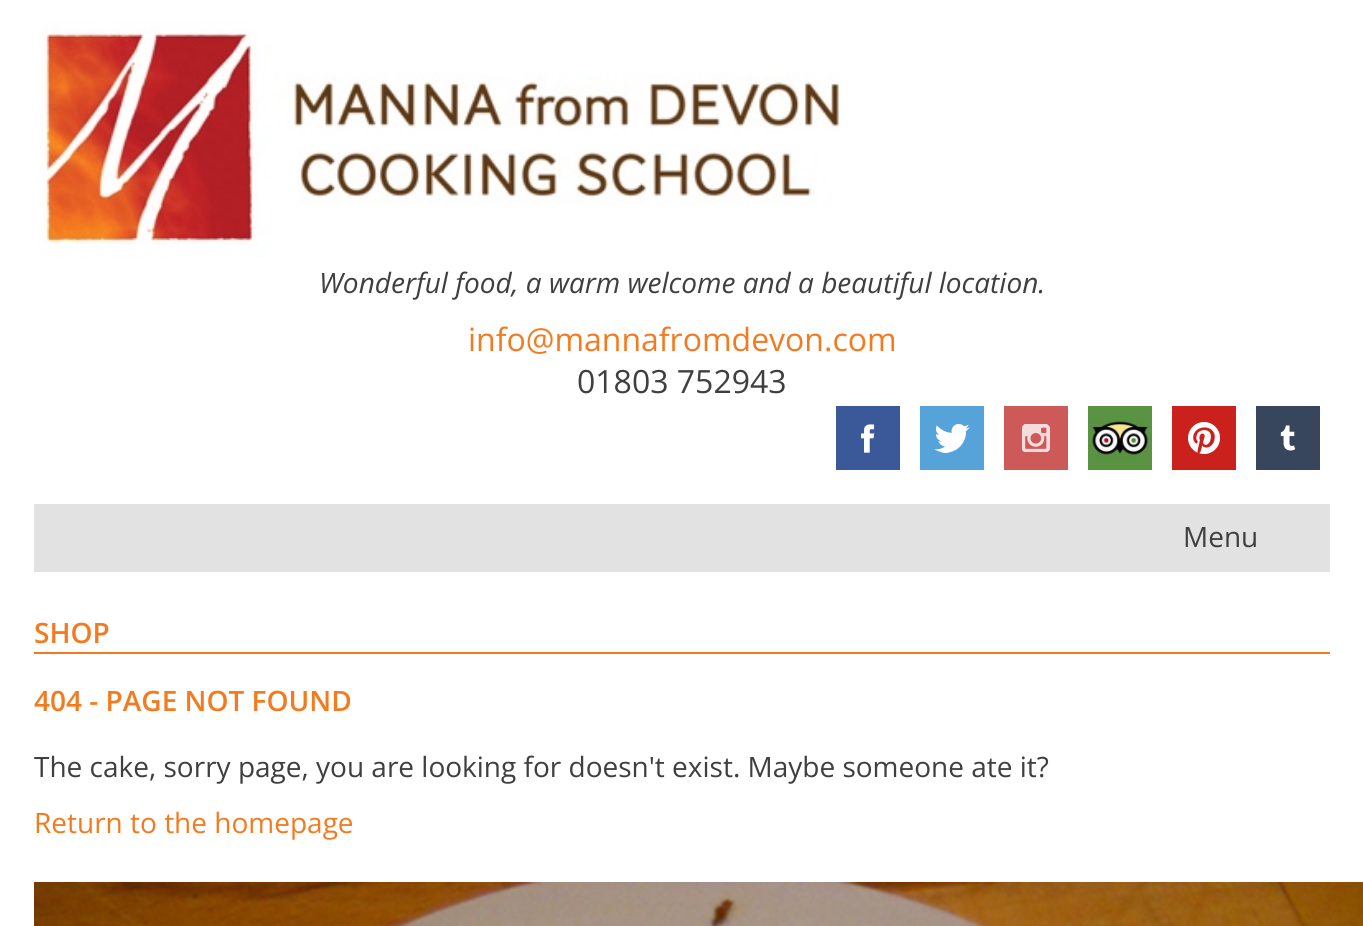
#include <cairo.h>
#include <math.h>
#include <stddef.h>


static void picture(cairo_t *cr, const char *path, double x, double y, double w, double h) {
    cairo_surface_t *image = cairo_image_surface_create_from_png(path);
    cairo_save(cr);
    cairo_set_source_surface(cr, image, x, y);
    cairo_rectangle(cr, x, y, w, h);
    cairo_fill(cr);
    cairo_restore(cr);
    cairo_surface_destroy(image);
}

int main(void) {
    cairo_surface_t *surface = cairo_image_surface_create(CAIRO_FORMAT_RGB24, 1363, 926);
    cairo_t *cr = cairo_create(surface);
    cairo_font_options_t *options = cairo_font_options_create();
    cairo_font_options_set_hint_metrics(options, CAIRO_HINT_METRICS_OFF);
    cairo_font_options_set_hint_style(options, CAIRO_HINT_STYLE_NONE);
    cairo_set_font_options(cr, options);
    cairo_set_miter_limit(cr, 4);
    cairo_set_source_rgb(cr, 1, 1, 1);
    cairo_paint(cr);
    picture(cr, "img1.png", 38, 20, 803, 238);
    cairo_select_font_face(cr, "Open Sans", CAIRO_FONT_SLANT_ITALIC, CAIRO_FONT_WEIGHT_NORMAL);
    cairo_set_font_size(cr, 28);
    cairo_set_source_rgb(cr, 0.247, 0.247, 0.247);
    cairo_move_to(cr, 319, 293);
    cairo_show_text(cr, "Wonderful food, a warm welcome and a beautiful location.");
    cairo_select_font_face(cr, "Open Sans", CAIRO_FONT_SLANT_NORMAL, CAIRO_FONT_WEIGHT_NORMAL);
    cairo_set_font_size(cr, 32);
    cairo_set_source_rgb(cr, 0.957, 0.478, 0.122);
    cairo_move_to(cr, 468, 351);
    cairo_show_text(cr, "info@mannafromdevon.com");
    cairo_set_source_rgb(cr, 0.247, 0.247, 0.247);
    cairo_move_to(cr, 577, 393);
    cairo_show_text(cr, "01803 752943");
    picture(cr, "img2.png", 836, 406, 64, 64);
    picture(cr, "img3.png", 920, 406, 64, 64);
    picture(cr, "img4.png", 1004, 406, 64, 64);
    picture(cr, "img5.png", 1088, 406, 64, 64);
    picture(cr, "img6.png", 1172, 406, 64, 64);
    picture(cr, "img7.png", 1256, 406, 64, 64);
    cairo_set_source_rgb(cr, 0.886, 0.886, 0.886);
    cairo_rectangle(cr, 34, 504, 1296, 68);
    cairo_fill(cr);
    cairo_set_font_size(cr, 28);
    cairo_set_source_rgb(cr, 0.247, 0.247, 0.247);
    cairo_move_to(cr, 1183, 547);
    cairo_show_text(cr, "Menu");
    cairo_set_source_rgb(cr, 0.957, 0.478, 0.122);
    cairo_rectangle(cr, 34, 652, 1296, 2);
    cairo_fill(cr);
    cairo_select_font_face(cr, "Open Sans SemiBold", CAIRO_FONT_SLANT_NORMAL, CAIRO_FONT_WEIGHT_NORMAL);
    cairo_move_to(cr, 34, 643);
    cairo_show_text(cr, "SHOP");
    cairo_move_to(cr, 34, 711);
    cairo_show_text(cr, "404 - PAGE NOT FOUND");
    cairo_select_font_face(cr, "Open Sans", CAIRO_FONT_SLANT_NORMAL, CAIRO_FONT_WEIGHT_NORMAL);
    cairo_set_source_rgb(cr, 0.247, 0.247, 0.247);
    cairo_move_to(cr, 34, 777);
    cairo_show_text(cr, "The cake, sorry page, you are looking for doesn't exist. Maybe someone ate it?");
    cairo_set_source_rgb(cr, 0.957, 0.478, 0.122);
    cairo_move_to(cr, 34, 833);
    cairo_show_text(cr, "Return to the homepage");
    picture(cr, "img8.png", 34, 882, 1329, 44);
    cairo_surface_write_to_png(surface, "page.png");
    cairo_font_options_destroy(options);
    cairo_destroy(cr);
    cairo_surface_destroy(surface);
    return 0;
}
